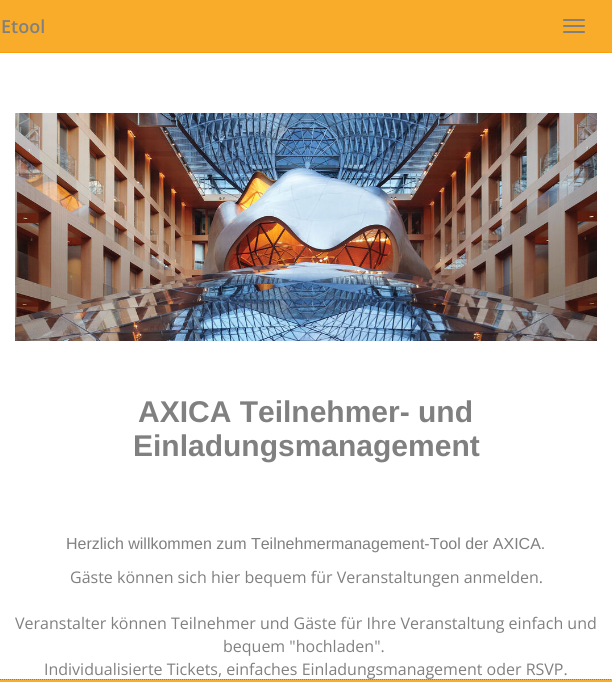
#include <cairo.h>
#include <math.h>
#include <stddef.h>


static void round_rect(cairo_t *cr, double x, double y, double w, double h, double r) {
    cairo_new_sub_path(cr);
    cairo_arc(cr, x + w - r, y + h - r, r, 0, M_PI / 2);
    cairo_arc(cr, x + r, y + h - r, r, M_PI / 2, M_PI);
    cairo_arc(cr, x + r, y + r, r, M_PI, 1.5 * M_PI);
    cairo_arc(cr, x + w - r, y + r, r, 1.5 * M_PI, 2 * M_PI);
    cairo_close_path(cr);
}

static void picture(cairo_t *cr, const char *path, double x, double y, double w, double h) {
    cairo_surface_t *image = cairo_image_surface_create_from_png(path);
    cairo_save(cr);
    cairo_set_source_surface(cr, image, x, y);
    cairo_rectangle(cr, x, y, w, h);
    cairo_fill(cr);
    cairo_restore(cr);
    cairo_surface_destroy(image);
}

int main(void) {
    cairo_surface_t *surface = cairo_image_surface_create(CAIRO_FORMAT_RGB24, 612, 682);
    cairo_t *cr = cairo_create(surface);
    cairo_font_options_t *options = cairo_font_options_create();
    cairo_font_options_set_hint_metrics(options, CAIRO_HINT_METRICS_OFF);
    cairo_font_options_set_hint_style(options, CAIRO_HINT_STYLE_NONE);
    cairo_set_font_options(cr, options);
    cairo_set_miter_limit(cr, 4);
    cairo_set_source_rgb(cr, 1, 1, 1);
    cairo_paint(cr);
    cairo_set_source_rgb(cr, 0.973, 0.675, 0.161);
    cairo_rectangle(cr, 0, 0, 612, 52);
    cairo_fill(cr);
    cairo_set_source_rgb(cr, 0.969, 0.627, 0.035);
    cairo_rectangle(cr, 0, 52, 612, 1);
    cairo_fill(cr);
    cairo_select_font_face(cr, "Open Sans SemiBold", CAIRO_FONT_SLANT_NORMAL, CAIRO_FONT_WEIGHT_NORMAL);
    cairo_set_font_size(cr, 18);
    cairo_set_source_rgb(cr, 0.502, 0.502, 0.502);
    cairo_move_to(cr, 1, 33);
    cairo_show_text(cr, "Etool");
    round_rect(cr, 563, 19, 22, 2, 1);
    cairo_fill(cr);
    round_rect(cr, 563, 25, 22, 2, 1);
    cairo_fill(cr);
    round_rect(cr, 563, 31, 22, 2, 1);
    cairo_fill(cr);
    picture(cr, "img1.png", 15, 113, 582, 228);
    cairo_select_font_face(cr, "Liberation Sans", CAIRO_FONT_SLANT_NORMAL, CAIRO_FONT_WEIGHT_BOLD);
    cairo_set_font_size(cr, 30);
    cairo_move_to(cr, 138, 422);
    cairo_show_text(cr, "AXICA Teilnehmer- und");
    cairo_move_to(cr, 133, 456);
    cairo_show_text(cr, "Einladungsmanagement");
    cairo_select_font_face(cr, "Liberation Sans", CAIRO_FONT_SLANT_NORMAL, CAIRO_FONT_WEIGHT_NORMAL);
    cairo_set_font_size(cr, 16);
    cairo_move_to(cr, 66, 549);
    cairo_show_text(cr, "Herzlich willkommen zum Teilnehmermanagement-Tool der AXICA.");
    cairo_select_font_face(cr, "Open Sans", CAIRO_FONT_SLANT_NORMAL, CAIRO_FONT_WEIGHT_NORMAL);
    cairo_move_to(cr, 70, 583);
    cairo_show_text(cr, "Gäste können sich hier bequem für Veranstaltungen anmelden.");
    cairo_move_to(cr, 15, 629);
    cairo_show_text(cr, "Veranstalter können Teilnehmer und Gäste für Ihre Veranstaltung einfach und");
    cairo_move_to(cr, 223, 652);
    cairo_show_text(cr, "bequem \"hochladen\".");
    cairo_move_to(cr, 44, 675);
    cairo_show_text(cr, "Individualisierte Tickets, einfaches Einladungsmanagement oder RSVP.");
    cairo_set_source_rgb(cr, 0.973, 0.675, 0.161);
    cairo_rectangle(cr, 0, 679, 612, 3);
    cairo_fill(cr);
    cairo_new_path(cr);
    cairo_move_to(cr, 0, 679.5);
    cairo_line_to(cr, 612, 679.5);
    cairo_set_source_rgb(cr, 0.502, 0.502, 0.502);
    cairo_set_line_width(cr, 1);
    cairo_set_dash(cr, (double[]){1, 1}, 2, 0);
    cairo_stroke(cr);
    cairo_surface_write_to_png(surface, "page.png");
    cairo_font_options_destroy(options);
    cairo_destroy(cr);
    cairo_surface_destroy(surface);
    return 0;
}
